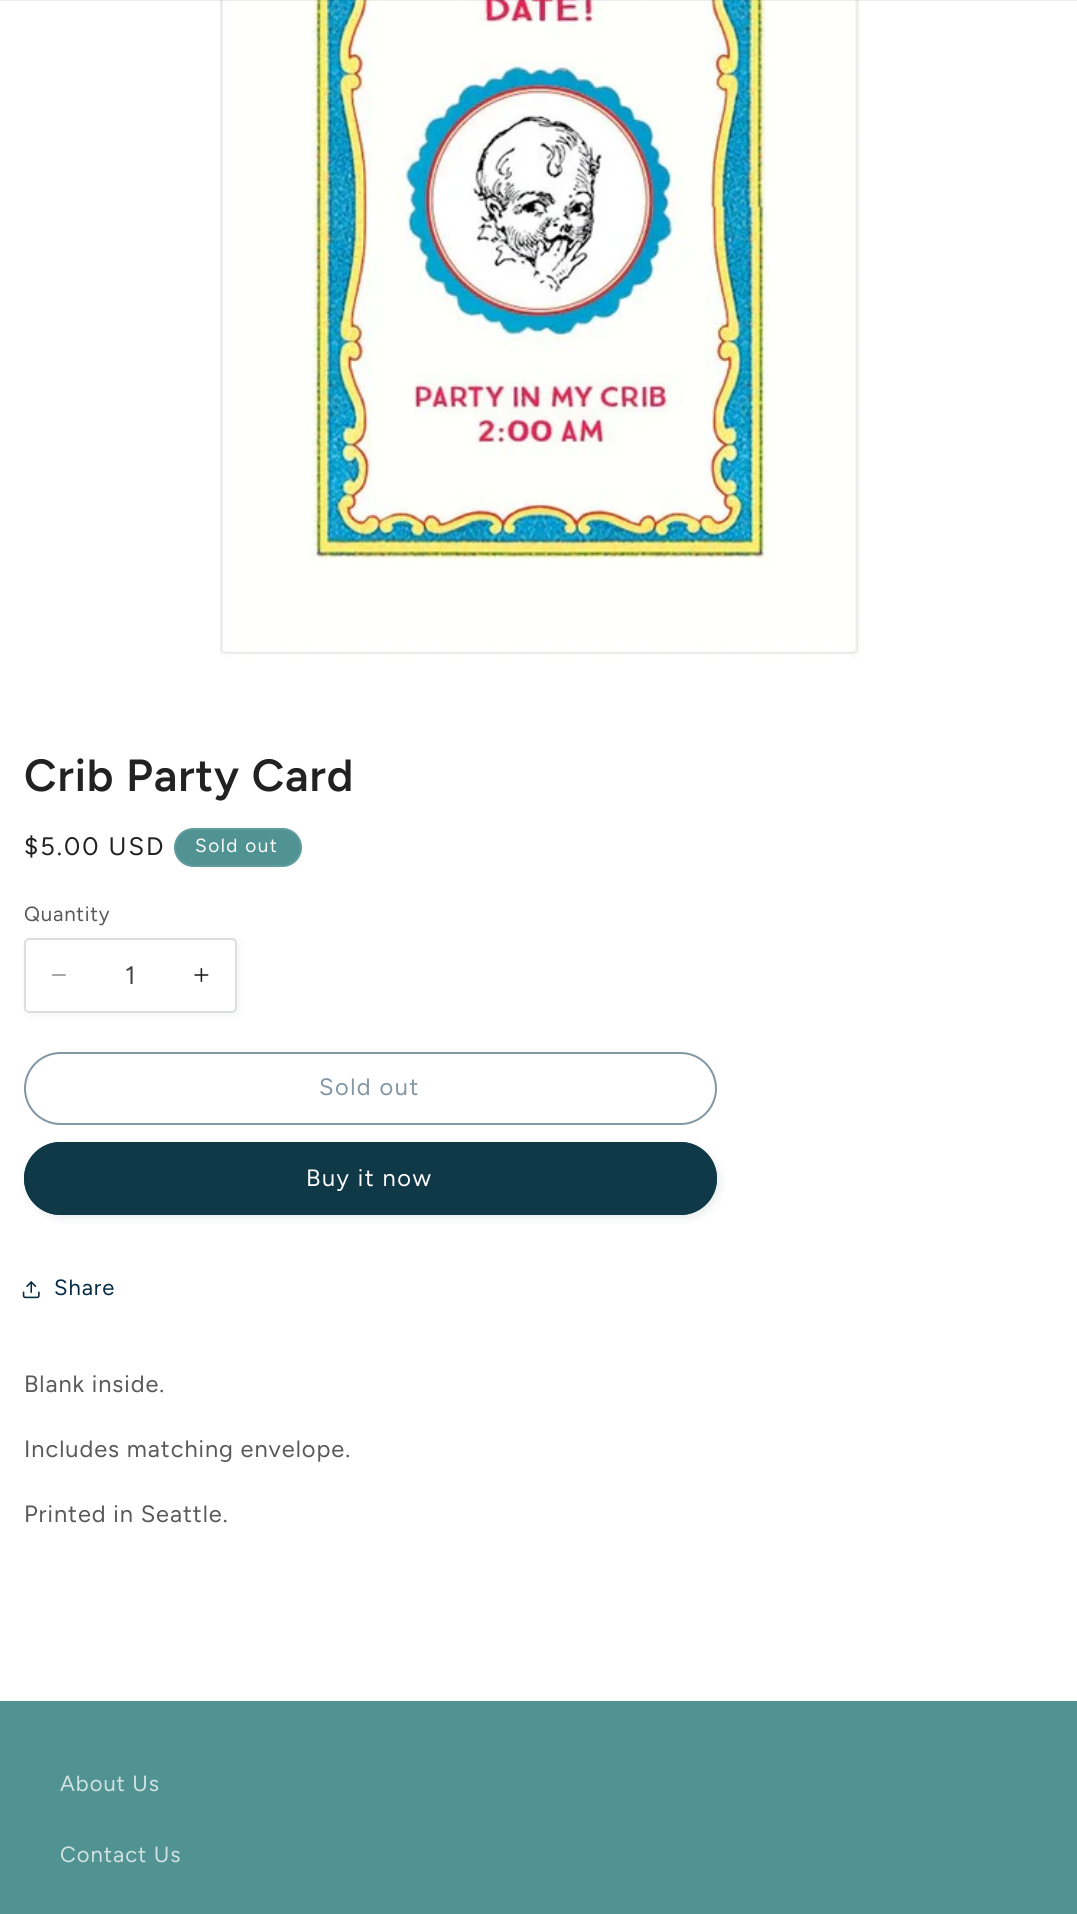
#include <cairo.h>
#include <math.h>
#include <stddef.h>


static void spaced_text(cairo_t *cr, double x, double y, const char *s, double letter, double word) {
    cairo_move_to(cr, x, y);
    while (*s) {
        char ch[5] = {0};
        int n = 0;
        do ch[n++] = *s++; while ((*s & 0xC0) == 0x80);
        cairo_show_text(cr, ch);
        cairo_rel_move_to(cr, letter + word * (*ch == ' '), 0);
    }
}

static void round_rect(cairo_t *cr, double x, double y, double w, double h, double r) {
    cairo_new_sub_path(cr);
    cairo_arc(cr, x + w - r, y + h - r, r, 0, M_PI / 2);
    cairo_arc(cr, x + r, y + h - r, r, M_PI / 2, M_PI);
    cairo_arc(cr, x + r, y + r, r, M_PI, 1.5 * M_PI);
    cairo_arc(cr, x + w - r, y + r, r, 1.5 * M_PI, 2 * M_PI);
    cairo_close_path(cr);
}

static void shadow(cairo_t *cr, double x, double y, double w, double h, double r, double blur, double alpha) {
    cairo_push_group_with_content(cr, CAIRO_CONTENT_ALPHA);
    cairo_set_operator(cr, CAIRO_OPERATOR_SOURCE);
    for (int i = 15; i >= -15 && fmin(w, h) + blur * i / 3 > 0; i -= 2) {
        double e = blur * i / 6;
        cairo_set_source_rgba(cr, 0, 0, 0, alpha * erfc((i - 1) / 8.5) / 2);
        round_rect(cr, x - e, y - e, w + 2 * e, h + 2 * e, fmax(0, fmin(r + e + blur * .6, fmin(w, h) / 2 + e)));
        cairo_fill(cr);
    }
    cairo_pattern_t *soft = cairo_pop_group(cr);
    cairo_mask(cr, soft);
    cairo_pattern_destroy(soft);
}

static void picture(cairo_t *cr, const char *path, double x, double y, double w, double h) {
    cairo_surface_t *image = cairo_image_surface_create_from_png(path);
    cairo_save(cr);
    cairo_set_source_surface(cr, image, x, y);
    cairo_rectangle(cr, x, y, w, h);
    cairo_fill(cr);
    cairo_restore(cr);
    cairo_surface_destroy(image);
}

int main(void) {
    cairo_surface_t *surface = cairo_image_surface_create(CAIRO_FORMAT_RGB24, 1077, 1914);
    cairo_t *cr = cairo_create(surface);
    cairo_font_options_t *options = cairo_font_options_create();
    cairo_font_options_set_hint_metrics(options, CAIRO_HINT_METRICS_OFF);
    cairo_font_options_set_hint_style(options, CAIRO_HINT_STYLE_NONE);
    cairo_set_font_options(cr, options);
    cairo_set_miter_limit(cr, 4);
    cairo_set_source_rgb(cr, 1, 1, 1);
    cairo_paint(cr);
    picture(cr, "img1.png", 220, 0, 641, 660);
    cairo_set_source_rgba(cr, 0.063, 0.224, 0.282, 0.08);
    cairo_rectangle(cr, 0, 0, 1077, 1);
    cairo_fill(cr);
    cairo_select_font_face(cr, "Figtree SemiBold", CAIRO_FONT_SLANT_NORMAL, CAIRO_FONT_WEIGHT_NORMAL);
    cairo_set_font_size(cr, 45);
    cairo_set_source_rgb(cr, 0.133, 0.133, 0.133);
    spaced_text(cr, 24, 791, "Crib Party Card", 0.9, 0);
    cairo_select_font_face(cr, "Figtree", CAIRO_FONT_SLANT_NORMAL, CAIRO_FONT_WEIGHT_NORMAL);
    cairo_set_font_size(cr, 25.25);
    spaced_text(cr, 24, 855, "$5.00 USD", 2, 0);
    cairo_set_source_rgb(cr, 0.318, 0.573, 0.576);
    round_rect(cr, 174, 828, 128, 39, 19.5);
    cairo_fill(cr);
    round_rect(cr, 175, 829, 126, 37, 18.5);
    cairo_set_source_rgba(cr, 0.988, 0.988, 0.988, 0.1);
    cairo_stroke(cr);
    cairo_set_font_size(cr, 19);
    cairo_set_source_rgb(cr, 0.988, 0.988, 0.988);
    spaced_text(cr, 195, 852, "Sold out", 1.5, 0);
    cairo_set_font_size(cr, 20.5);
    cairo_set_source_rgb(cr, 0.349, 0.349, 0.349);
    spaced_text(cr, 24, 921, "Quantity", 0.75, 0);
    cairo_set_source_rgb(cr, 0.063, 0.224, 0.282);
    shadow(cr, 27, 941, 213, 75, 5, 4, 0.05);
    cairo_set_source_rgb(cr, 1, 1, 1);
    round_rect(cr, 24, 938, 213, 75, 5);
    cairo_fill(cr);
    picture(cr, "img2.png", 51, 974, 15, 2);
    picture(cr, "img3.png", 194, 968, 15, 14);
    round_rect(cr, 25, 939, 211, 73, 4);
    cairo_set_source_rgba(cr, 0.133, 0.133, 0.133, 0.15);
    cairo_stroke(cr);
    cairo_set_font_size(cr, 25.25);
    cairo_set_source_rgb(cr, 0.263, 0.263, 0.263);
    cairo_move_to(cr, 125, 984);
    cairo_show_text(cr, "1");
    round_rect(cr, 25, 1053, 691, 71, 35.5);
    cairo_set_source_rgb(cr, 0.51, 0.588, 0.639);
    cairo_stroke(cr);
    cairo_set_font_size(cr, 23.6);
    spaced_text(cr, 319, 1095, "Sold out", 1.5, 0);
    cairo_set_source_rgb(cr, 0.063, 0.224, 0.282);
    shadow(cr, 27, 1145, 693, 73, 36.5, 4, 0.1);
    cairo_set_source_rgb(cr, 0.063, 0.224, 0.282);
    round_rect(cr, 24, 1142, 693, 73, 36.5);
    cairo_fill(cr);
    round_rect(cr, 25, 1143, 691, 71, 35.5);
    cairo_stroke(cr);
    cairo_set_source_rgb(cr, 0.988, 0.988, 0.988);
    spaced_text(cr, 306, 1186, "Buy it now", 1.5, 0);
    picture(cr, "img4.png", 22, 1281, 18, 18);
    cairo_set_font_size(cr, 22);
    cairo_set_source_rgb(cr, 0.02, 0.173, 0.275);
    spaced_text(cr, 54, 1295, "Share", 0.95, 0);
    cairo_set_font_size(cr, 23.6);
    cairo_set_source_rgb(cr, 0.349, 0.349, 0.349);
    spaced_text(cr, 24, 1392, "Blank inside.", 0.95, 0);
    spaced_text(cr, 24, 1457, "Includes matching envelope.", 0.95, 0);
    spaced_text(cr, 24, 1522, "Printed in Seattle.", 0.95, 0);
    cairo_set_source_rgb(cr, 0.318, 0.573, 0.576);
    cairo_rectangle(cr, 0, 1701, 1077, 213);
    cairo_fill(cr);
    cairo_set_font_size(cr, 22);
    cairo_set_source_rgb(cr, 0.82, 0.886, 0.886);
    spaced_text(cr, 60, 1791, "About Us", 0.95, 0);
    spaced_text(cr, 60, 1862, "Contact Us", 0.95, 0);
    cairo_surface_write_to_png(surface, "page.png");
    cairo_font_options_destroy(options);
    cairo_destroy(cr);
    cairo_surface_destroy(surface);
    return 0;
}
